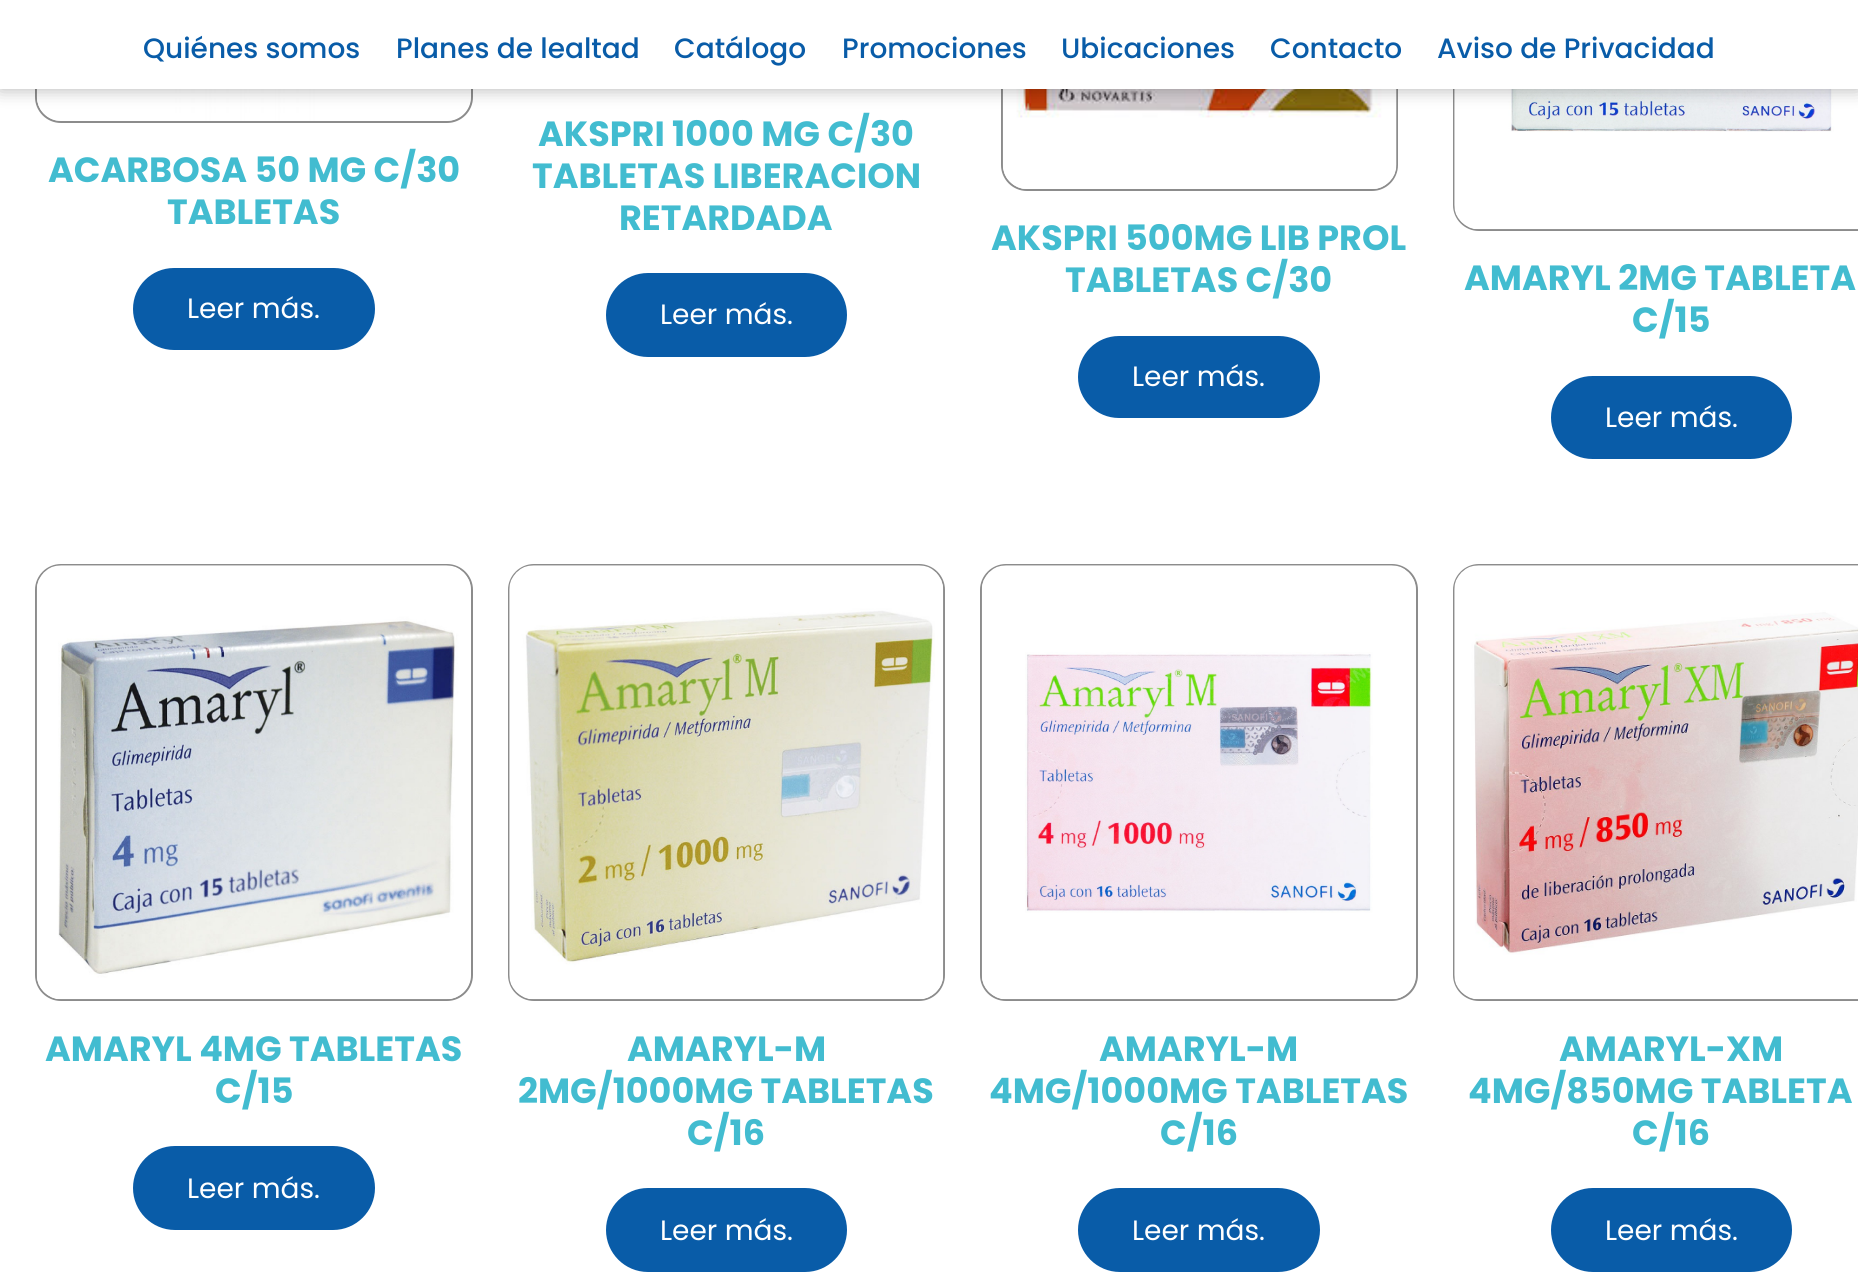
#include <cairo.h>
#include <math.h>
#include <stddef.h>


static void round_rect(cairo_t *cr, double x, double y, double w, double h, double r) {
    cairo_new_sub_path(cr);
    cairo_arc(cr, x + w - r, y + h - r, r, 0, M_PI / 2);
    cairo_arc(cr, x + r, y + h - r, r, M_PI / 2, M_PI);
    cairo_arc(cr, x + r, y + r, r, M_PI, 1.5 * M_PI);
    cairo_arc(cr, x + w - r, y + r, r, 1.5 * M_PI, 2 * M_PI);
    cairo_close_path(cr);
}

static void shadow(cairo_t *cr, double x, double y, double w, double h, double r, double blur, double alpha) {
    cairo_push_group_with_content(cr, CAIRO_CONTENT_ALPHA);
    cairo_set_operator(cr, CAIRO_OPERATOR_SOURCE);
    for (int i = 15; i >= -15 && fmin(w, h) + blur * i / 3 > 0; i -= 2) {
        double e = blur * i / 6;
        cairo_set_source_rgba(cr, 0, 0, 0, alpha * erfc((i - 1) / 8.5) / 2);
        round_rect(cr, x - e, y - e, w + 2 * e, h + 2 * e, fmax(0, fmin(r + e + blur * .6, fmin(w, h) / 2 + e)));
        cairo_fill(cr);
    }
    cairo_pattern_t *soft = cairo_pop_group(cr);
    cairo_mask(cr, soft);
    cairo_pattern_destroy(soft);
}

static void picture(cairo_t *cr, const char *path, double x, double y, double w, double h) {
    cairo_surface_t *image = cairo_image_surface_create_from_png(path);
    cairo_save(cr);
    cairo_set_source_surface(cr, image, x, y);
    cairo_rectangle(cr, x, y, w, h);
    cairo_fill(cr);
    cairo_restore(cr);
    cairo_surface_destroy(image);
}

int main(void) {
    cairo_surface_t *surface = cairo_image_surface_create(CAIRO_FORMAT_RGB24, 1858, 1280);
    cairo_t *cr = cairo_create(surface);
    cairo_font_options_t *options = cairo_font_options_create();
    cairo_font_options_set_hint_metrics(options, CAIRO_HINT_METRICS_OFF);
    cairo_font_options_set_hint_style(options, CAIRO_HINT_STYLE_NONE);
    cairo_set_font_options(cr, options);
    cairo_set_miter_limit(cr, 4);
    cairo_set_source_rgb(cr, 1, 1, 1);
    cairo_paint(cr);
    round_rect(cr, 36, -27, 436, 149, 25);
    cairo_set_source_rgb(cr, 0.549, 0.549, 0.549);
    cairo_stroke(cr);
    picture(cr, "img1.png", 36, 89, 435, 32);
    round_rect(cr, 1002, -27, 395, 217, 25);
    cairo_stroke(cr);
    picture(cr, "img2.png", 1002, 89, 395, 100);
    round_rect(cr, 1454, -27, 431, 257, 25);
    cairo_stroke(cr);
    picture(cr, "img3.png", 1454, 89, 404, 141);
    cairo_set_source_rgb(cr, 0, 0, 0);
    shadow(cr, 0, 0, 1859, 89, 0, 9, 0.3);
    cairo_set_source_rgb(cr, 1, 1, 1);
    cairo_rectangle(cr, 0, 0, 1858, 89);
    cairo_fill(cr);
    cairo_select_font_face(cr, "Poppins Medium", CAIRO_FONT_SLANT_NORMAL, CAIRO_FONT_WEIGHT_NORMAL);
    cairo_set_font_size(cr, 28);
    cairo_set_source_rgb(cr, 0.039, 0.361, 0.659);
    cairo_move_to(cr, 143, 58);
    cairo_show_text(cr, "Quiénes somos");
    cairo_move_to(cr, 396, 58);
    cairo_show_text(cr, "Planes de lealtad");
    cairo_move_to(cr, 674, 58);
    cairo_show_text(cr, "Catálogo");
    cairo_move_to(cr, 842, 58);
    cairo_show_text(cr, "Promociones");
    cairo_move_to(cr, 1061, 58);
    cairo_show_text(cr, "Ubicaciones");
    cairo_move_to(cr, 1270, 58);
    cairo_show_text(cr, "Contacto");
    cairo_move_to(cr, 1437, 58);
    cairo_show_text(cr, "Aviso de Privacidad");
    cairo_select_font_face(cr, "Poppins", CAIRO_FONT_SLANT_NORMAL, CAIRO_FONT_WEIGHT_BOLD);
    cairo_set_font_size(cr, 35);
    cairo_set_source_rgb(cr, 0.259, 0.737, 0.816);
    cairo_move_to(cr, 48, 182);
    cairo_show_text(cr, "ACARBOSA 50 MG C/30");
    cairo_move_to(cr, 167, 224);
    cairo_show_text(cr, "TABLETAS");
    cairo_set_source_rgb(cr, 0.039, 0.361, 0.659);
    round_rect(cr, 134, 269, 240, 80, 40);
    cairo_fill_preserve(cr);
    cairo_stroke(cr);
    cairo_select_font_face(cr, "Poppins", CAIRO_FONT_SLANT_NORMAL, CAIRO_FONT_WEIGHT_NORMAL);
    cairo_set_font_size(cr, 28);
    cairo_set_source_rgb(cr, 1, 1, 1);
    cairo_move_to(cr, 187, 318);
    cairo_show_text(cr, "Leer más.");
    cairo_select_font_face(cr, "Poppins", CAIRO_FONT_SLANT_NORMAL, CAIRO_FONT_WEIGHT_BOLD);
    cairo_set_font_size(cr, 35);
    cairo_set_source_rgb(cr, 0.259, 0.737, 0.816);
    cairo_move_to(cr, 538, 146);
    cairo_show_text(cr, "AKSPRI 1000 MG C/30");
    cairo_move_to(cr, 532, 188);
    cairo_show_text(cr, "TABLETAS LIBERACION");
    cairo_move_to(cr, 619, 230);
    cairo_show_text(cr, "RETARDADA");
    cairo_set_source_rgb(cr, 0.039, 0.361, 0.659);
    round_rect(cr, 607, 274, 239, 82, 41);
    cairo_fill_preserve(cr);
    cairo_stroke(cr);
    cairo_select_font_face(cr, "Poppins", CAIRO_FONT_SLANT_NORMAL, CAIRO_FONT_WEIGHT_NORMAL);
    cairo_set_font_size(cr, 28);
    cairo_set_source_rgb(cr, 1, 1, 1);
    cairo_move_to(cr, 660, 324);
    cairo_show_text(cr, "Leer más.");
    cairo_select_font_face(cr, "Poppins", CAIRO_FONT_SLANT_NORMAL, CAIRO_FONT_WEIGHT_BOLD);
    cairo_set_font_size(cr, 35);
    cairo_set_source_rgb(cr, 0.259, 0.737, 0.816);
    cairo_move_to(cr, 991, 250);
    cairo_show_text(cr, "AKSPRI 500MG LIB PROL");
    cairo_move_to(cr, 1065, 292);
    cairo_show_text(cr, "TABLETAS C/30");
    cairo_set_source_rgb(cr, 0.039, 0.361, 0.659);
    round_rect(cr, 1079, 337, 240, 80, 40);
    cairo_fill_preserve(cr);
    cairo_stroke(cr);
    cairo_select_font_face(cr, "Poppins", CAIRO_FONT_SLANT_NORMAL, CAIRO_FONT_WEIGHT_NORMAL);
    cairo_set_font_size(cr, 28);
    cairo_set_source_rgb(cr, 1, 1, 1);
    cairo_move_to(cr, 1132, 386);
    cairo_show_text(cr, "Leer más.");
    cairo_select_font_face(cr, "Poppins", CAIRO_FONT_SLANT_NORMAL, CAIRO_FONT_WEIGHT_BOLD);
    cairo_set_font_size(cr, 35);
    cairo_set_source_rgb(cr, 0.259, 0.737, 0.816);
    cairo_move_to(cr, 1464, 290);
    cairo_show_text(cr, "AMARYL 2MG TABLETA");
    cairo_move_to(cr, 1632, 332);
    cairo_show_text(cr, "C/15");
    cairo_set_source_rgb(cr, 0.039, 0.361, 0.659);
    round_rect(cr, 1552, 377, 239, 81, 40.5);
    cairo_fill_preserve(cr);
    cairo_stroke(cr);
    cairo_select_font_face(cr, "Poppins", CAIRO_FONT_SLANT_NORMAL, CAIRO_FONT_WEIGHT_NORMAL);
    cairo_set_font_size(cr, 28);
    cairo_set_source_rgb(cr, 1, 1, 1);
    cairo_move_to(cr, 1605, 427);
    cairo_show_text(cr, "Leer más.");
    round_rect(cr, 36, 565, 436, 435, 25);
    cairo_set_source_rgb(cr, 0.549, 0.549, 0.549);
    cairo_stroke(cr);
    picture(cr, "img4.png", 36, 565, 435, 435);
    cairo_select_font_face(cr, "Poppins", CAIRO_FONT_SLANT_NORMAL, CAIRO_FONT_WEIGHT_BOLD);
    cairo_set_font_size(cr, 35);
    cairo_set_source_rgb(cr, 0.259, 0.737, 0.816);
    cairo_move_to(cr, 45, 1061);
    cairo_show_text(cr, "AMARYL 4MG TABLETAS");
    cairo_move_to(cr, 215, 1103);
    cairo_show_text(cr, "C/15");
    cairo_set_source_rgb(cr, 0.039, 0.361, 0.659);
    round_rect(cr, 134, 1147, 240, 82, 41);
    cairo_fill_preserve(cr);
    cairo_stroke(cr);
    cairo_select_font_face(cr, "Poppins", CAIRO_FONT_SLANT_NORMAL, CAIRO_FONT_WEIGHT_NORMAL);
    cairo_set_font_size(cr, 28);
    cairo_set_source_rgb(cr, 1, 1, 1);
    cairo_move_to(cr, 187, 1198);
    cairo_show_text(cr, "Leer más.");
    round_rect(cr, 509, 565, 435, 435, 25);
    cairo_set_source_rgb(cr, 0.549, 0.549, 0.549);
    cairo_stroke(cr);
    picture(cr, "img5.png", 509, 565, 435, 435);
    cairo_select_font_face(cr, "Poppins", CAIRO_FONT_SLANT_NORMAL, CAIRO_FONT_WEIGHT_BOLD);
    cairo_set_font_size(cr, 35);
    cairo_set_source_rgb(cr, 0.259, 0.737, 0.816);
    cairo_move_to(cr, 627, 1061);
    cairo_show_text(cr, "AMARYL-M");
    cairo_move_to(cr, 518, 1103);
    cairo_show_text(cr, "2MG/1000MG TABLETAS");
    cairo_move_to(cr, 687, 1145);
    cairo_show_text(cr, "C/16");
    cairo_set_source_rgb(cr, 0.039, 0.361, 0.659);
    round_rect(cr, 607, 1189, 239, 82, 41);
    cairo_fill_preserve(cr);
    cairo_stroke(cr);
    cairo_select_font_face(cr, "Poppins", CAIRO_FONT_SLANT_NORMAL, CAIRO_FONT_WEIGHT_NORMAL);
    cairo_set_font_size(cr, 28);
    cairo_set_source_rgb(cr, 1, 1, 1);
    cairo_move_to(cr, 660, 1240);
    cairo_show_text(cr, "Leer más.");
    round_rect(cr, 981, 565, 436, 435, 25);
    cairo_set_source_rgb(cr, 0.549, 0.549, 0.549);
    cairo_stroke(cr);
    picture(cr, "img6.png", 981, 565, 435, 435);
    cairo_select_font_face(cr, "Poppins", CAIRO_FONT_SLANT_NORMAL, CAIRO_FONT_WEIGHT_BOLD);
    cairo_set_font_size(cr, 35);
    cairo_set_source_rgb(cr, 0.259, 0.737, 0.816);
    cairo_move_to(cr, 1099, 1061);
    cairo_show_text(cr, "AMARYL-M");
    cairo_move_to(cr, 989, 1103);
    cairo_show_text(cr, "4MG/1000MG TABLETAS");
    cairo_move_to(cr, 1160, 1145);
    cairo_show_text(cr, "C/16");
    cairo_set_source_rgb(cr, 0.039, 0.361, 0.659);
    round_rect(cr, 1079, 1189, 240, 82, 41);
    cairo_fill_preserve(cr);
    cairo_stroke(cr);
    cairo_select_font_face(cr, "Poppins", CAIRO_FONT_SLANT_NORMAL, CAIRO_FONT_WEIGHT_NORMAL);
    cairo_set_font_size(cr, 28);
    cairo_set_source_rgb(cr, 1, 1, 1);
    cairo_move_to(cr, 1132, 1240);
    cairo_show_text(cr, "Leer más.");
    round_rect(cr, 1454, 565, 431, 435, 25);
    cairo_set_source_rgb(cr, 0.549, 0.549, 0.549);
    cairo_stroke(cr);
    picture(cr, "img7.png", 1454, 565, 404, 435);
    cairo_select_font_face(cr, "Poppins", CAIRO_FONT_SLANT_NORMAL, CAIRO_FONT_WEIGHT_BOLD);
    cairo_set_font_size(cr, 35);
    cairo_set_source_rgb(cr, 0.259, 0.737, 0.816);
    cairo_move_to(cr, 1559, 1061);
    cairo_show_text(cr, "AMARYL-XM");
    cairo_move_to(cr, 1468, 1103);
    cairo_show_text(cr, "4MG/850MG TABLETA");
    cairo_move_to(cr, 1632, 1145);
    cairo_show_text(cr, "C/16");
    cairo_set_source_rgb(cr, 0.039, 0.361, 0.659);
    round_rect(cr, 1552, 1189, 239, 82, 41);
    cairo_fill_preserve(cr);
    cairo_stroke(cr);
    cairo_select_font_face(cr, "Poppins", CAIRO_FONT_SLANT_NORMAL, CAIRO_FONT_WEIGHT_NORMAL);
    cairo_set_font_size(cr, 28);
    cairo_set_source_rgb(cr, 1, 1, 1);
    cairo_move_to(cr, 1605, 1240);
    cairo_show_text(cr, "Leer más.");
    cairo_surface_write_to_png(surface, "page.png");
    cairo_font_options_destroy(options);
    cairo_destroy(cr);
    cairo_surface_destroy(surface);
    return 0;
}
